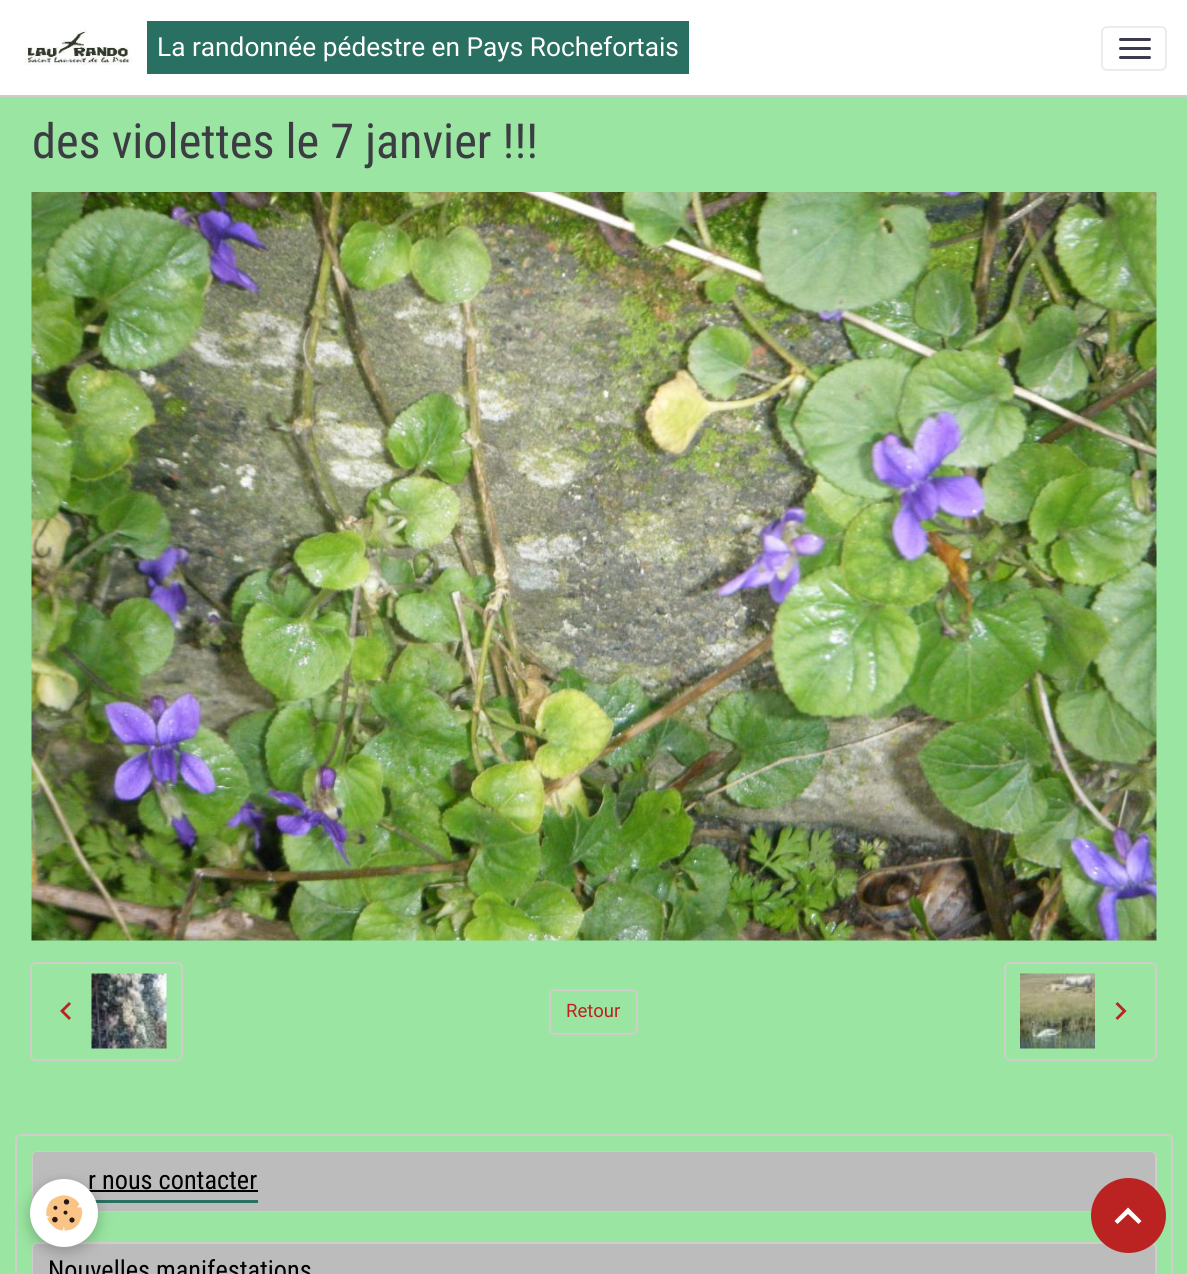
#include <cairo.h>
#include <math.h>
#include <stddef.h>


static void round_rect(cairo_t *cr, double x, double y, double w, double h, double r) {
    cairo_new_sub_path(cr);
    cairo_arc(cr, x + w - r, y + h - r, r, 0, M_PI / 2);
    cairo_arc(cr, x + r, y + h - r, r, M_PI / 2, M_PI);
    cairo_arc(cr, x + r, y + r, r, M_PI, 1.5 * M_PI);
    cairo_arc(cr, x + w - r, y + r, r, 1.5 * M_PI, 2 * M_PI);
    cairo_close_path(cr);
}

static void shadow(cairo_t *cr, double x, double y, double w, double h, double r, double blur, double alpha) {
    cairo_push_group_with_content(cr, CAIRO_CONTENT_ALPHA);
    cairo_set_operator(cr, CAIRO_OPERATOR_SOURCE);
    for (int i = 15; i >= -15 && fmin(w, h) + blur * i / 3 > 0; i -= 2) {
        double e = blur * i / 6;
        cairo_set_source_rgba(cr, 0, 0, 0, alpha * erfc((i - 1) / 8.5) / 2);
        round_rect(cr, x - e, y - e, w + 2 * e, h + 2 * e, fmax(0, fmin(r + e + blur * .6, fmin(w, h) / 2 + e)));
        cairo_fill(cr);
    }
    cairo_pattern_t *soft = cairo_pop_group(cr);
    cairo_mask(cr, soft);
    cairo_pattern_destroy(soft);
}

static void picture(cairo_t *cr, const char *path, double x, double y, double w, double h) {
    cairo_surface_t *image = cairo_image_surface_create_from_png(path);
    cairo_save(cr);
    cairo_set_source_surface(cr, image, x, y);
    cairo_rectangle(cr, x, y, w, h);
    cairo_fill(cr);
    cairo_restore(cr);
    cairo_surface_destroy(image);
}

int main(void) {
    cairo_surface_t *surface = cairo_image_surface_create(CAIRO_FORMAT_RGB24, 1187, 1274);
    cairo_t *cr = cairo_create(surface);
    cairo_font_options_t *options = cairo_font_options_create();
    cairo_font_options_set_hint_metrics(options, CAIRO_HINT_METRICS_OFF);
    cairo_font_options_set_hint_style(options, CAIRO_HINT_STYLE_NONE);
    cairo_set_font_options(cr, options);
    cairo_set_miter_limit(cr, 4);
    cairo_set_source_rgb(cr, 0.604, 0.898, 0.631);
    cairo_paint(cr);
    cairo_set_source_rgb(cr, 1, 1, 1);
    cairo_rectangle(cr, 0, 0, 1187, 95);
    cairo_fill(cr);
    cairo_set_source_rgb(cr, 0.812, 0.804, 0.788);
    cairo_rectangle(cr, 0, 95, 1187, 2);
    cairo_fill(cr);
    picture(cr, "img1.png", 24, 29, 108, 36);
    cairo_set_source_rgb(cr, 0.161, 0.439, 0.388);
    cairo_rectangle(cr, 147, 21, 542, 53);
    cairo_fill(cr);
    cairo_select_font_face(cr, "Roboto", CAIRO_FONT_SLANT_NORMAL, CAIRO_FONT_WEIGHT_NORMAL);
    cairo_set_font_size(cr, 26.25);
    cairo_set_source_rgb(cr, 1, 1, 1);
    cairo_move_to(cr, 157, 56);
    cairo_show_text(cr, "La randonnée pédestre en Pays Rochefortais");
    round_rect(cr, 1102, 27, 64, 43, 5);
    cairo_set_source_rgb(cr, 0.922, 0.922, 0.933);
    cairo_stroke(cr);
    cairo_set_source_rgb(cr, 0.227, 0.227, 0.314);
    round_rect(cr, 1119, 38, 32, 3, 1.5);
    cairo_fill(cr);
    round_rect(cr, 1119, 47, 32, 3, 1.5);
    cairo_fill(cr);
    round_rect(cr, 1119, 56, 32, 3, 1.5);
    cairo_fill(cr);
    cairo_select_font_face(cr, "Roboto Condensed", CAIRO_FONT_SLANT_NORMAL, CAIRO_FONT_WEIGHT_NORMAL);
    cairo_set_font_size(cr, 48.25);
    cairo_set_source_rgb(cr, 0.231, 0.239, 0.259);
    cairo_move_to(cr, 32, 158);
    cairo_show_text(cr, "des violettes le 7 janvier !!!");
    picture(cr, "img2.png", 31, 192, 1126, 749);
    round_rect(cr, 31, 963, 151, 97, 5);
    cairo_set_source_rgb(cr, 0.812, 0.804, 0.788);
    cairo_stroke(cr);
    cairo_set_source_rgb(cr, 0.733, 0.137, 0.137);
    cairo_new_path(cr);
    cairo_move_to(cr, 71, 1004);
    cairo_line_to(cr, 64, 1011);
    cairo_line_to(cr, 71, 1018);
    cairo_line_to(cr, 69, 1020);
    cairo_line_to(cr, 60, 1011);
    cairo_line_to(cr, 69, 1002);
    cairo_close_path(cr);
    cairo_fill(cr);
    picture(cr, "img3.png", 91, 973, 76, 76);
    round_rect(cr, 550, 990, 87, 44, 5);
    cairo_set_source_rgb(cr, 0.812, 0.804, 0.788);
    cairo_stroke(cr);
    cairo_select_font_face(cr, "Roboto", CAIRO_FONT_SLANT_NORMAL, CAIRO_FONT_WEIGHT_NORMAL);
    cairo_set_font_size(cr, 18.5);
    cairo_set_source_rgb(cr, 0.733, 0.137, 0.137);
    cairo_move_to(cr, 566, 1017);
    cairo_show_text(cr, "Retour");
    round_rect(cr, 1005, 963, 151, 97, 5);
    cairo_set_source_rgb(cr, 0.812, 0.804, 0.788);
    cairo_stroke(cr);
    picture(cr, "img4.png", 1020, 973, 75, 76);
    cairo_set_source_rgb(cr, 0.733, 0.137, 0.137);
    cairo_new_path(cr);
    cairo_move_to(cr, 1117.5, 1002);
    cairo_line_to(cr, 1126.5, 1011);
    cairo_line_to(cr, 1117.5, 1020);
    cairo_line_to(cr, 1115.5, 1018);
    cairo_line_to(cr, 1122.5, 1011);
    cairo_line_to(cr, 1115.5, 1004);
    cairo_close_path(cr);
    cairo_fill(cr);
    round_rect(cr, 16, 1135, 1156, 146, 5);
    cairo_set_source_rgb(cr, 0.812, 0.804, 0.788);
    cairo_stroke(cr);
    round_rect(cr, 33, 1152, 1123, 59, 5);
    cairo_stroke(cr);
    cairo_set_source_rgb(cr, 0.737, 0.737, 0.737);
    round_rect(cr, 33, 1152, 1122, 59, 4);
    cairo_fill(cr);
    cairo_set_source_rgb(cr, 0.161, 0.439, 0.388);
    cairo_rectangle(cr, 95, 1200, 163, 3);
    cairo_fill(cr);
    cairo_select_font_face(cr, "Roboto Condensed", CAIRO_FONT_SLANT_NORMAL, CAIRO_FONT_WEIGHT_NORMAL);
    cairo_set_font_size(cr, 26.25);
    cairo_set_source_rgb(cr, 0, 0, 0);
    cairo_move_to(cr, 88, 1189);
    cairo_show_text(cr, "r nous contacter");
    cairo_rectangle(cr, 89, 1190, 169, 2);
    cairo_fill(cr);
    round_rect(cr, 33, 1243, 1123, 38, 5);
    cairo_set_source_rgb(cr, 0.812, 0.804, 0.788);
    cairo_stroke(cr);
    cairo_set_source_rgb(cr, 0.737, 0.737, 0.737);
    round_rect(cr, 33, 1244, 1122, 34, 4);
    cairo_fill(cr);
    cairo_set_source_rgb(cr, 0, 0, 0);
    cairo_move_to(cr, 48, 1279);
    cairo_show_text(cr, "Nouvelles manifestations");
    cairo_set_source_rgb(cr, 0, 0, 0);
    shadow(cr, 30, 1184, 68, 67, 33.5, 7.5, 0.24);
    cairo_set_source_rgb(cr, 1, 1, 1);
    cairo_arc(cr, 64, 1213, 34, 0, 2 * M_PI);
    cairo_fill(cr);
    picture(cr, "img5.png", 46, 1195, 37, 36);
    cairo_set_source_rgb(cr, 0.733, 0.137, 0.137);
    cairo_arc(cr, 1128.5, 1215.5, 37.5, 0, 2 * M_PI);
    cairo_fill(cr);
    cairo_set_source_rgb(cr, 1, 1, 1);
    cairo_new_path(cr);
    cairo_move_to(cr, 1128, 1207.5);
    cairo_line_to(cr, 1141.5, 1221);
    cairo_line_to(cr, 1138.5, 1224);
    cairo_line_to(cr, 1128, 1214);
    cairo_line_to(cr, 1117.5, 1224);
    cairo_line_to(cr, 1114.5, 1221);
    cairo_close_path(cr);
    cairo_fill(cr);
    cairo_surface_write_to_png(surface, "page.png");
    cairo_font_options_destroy(options);
    cairo_destroy(cr);
    cairo_surface_destroy(surface);
    return 0;
}
